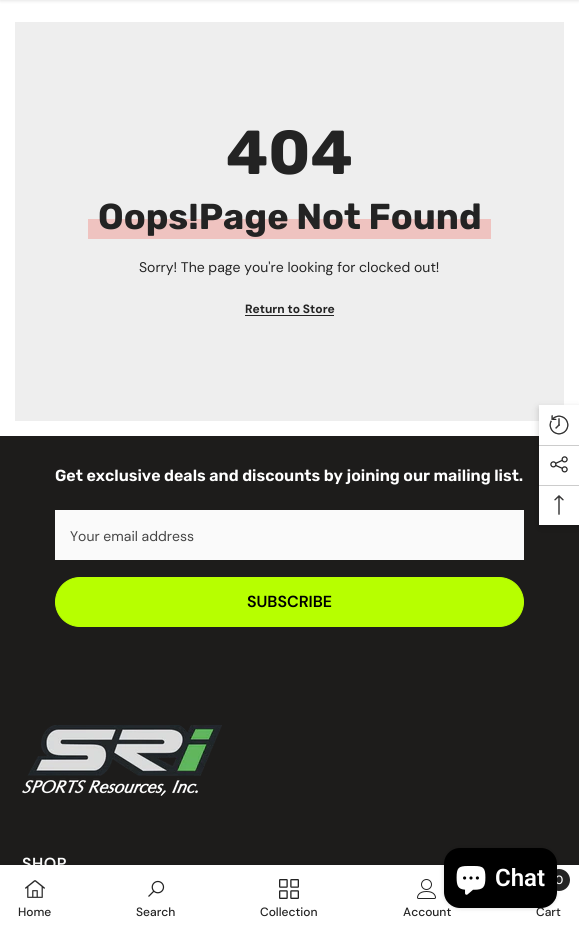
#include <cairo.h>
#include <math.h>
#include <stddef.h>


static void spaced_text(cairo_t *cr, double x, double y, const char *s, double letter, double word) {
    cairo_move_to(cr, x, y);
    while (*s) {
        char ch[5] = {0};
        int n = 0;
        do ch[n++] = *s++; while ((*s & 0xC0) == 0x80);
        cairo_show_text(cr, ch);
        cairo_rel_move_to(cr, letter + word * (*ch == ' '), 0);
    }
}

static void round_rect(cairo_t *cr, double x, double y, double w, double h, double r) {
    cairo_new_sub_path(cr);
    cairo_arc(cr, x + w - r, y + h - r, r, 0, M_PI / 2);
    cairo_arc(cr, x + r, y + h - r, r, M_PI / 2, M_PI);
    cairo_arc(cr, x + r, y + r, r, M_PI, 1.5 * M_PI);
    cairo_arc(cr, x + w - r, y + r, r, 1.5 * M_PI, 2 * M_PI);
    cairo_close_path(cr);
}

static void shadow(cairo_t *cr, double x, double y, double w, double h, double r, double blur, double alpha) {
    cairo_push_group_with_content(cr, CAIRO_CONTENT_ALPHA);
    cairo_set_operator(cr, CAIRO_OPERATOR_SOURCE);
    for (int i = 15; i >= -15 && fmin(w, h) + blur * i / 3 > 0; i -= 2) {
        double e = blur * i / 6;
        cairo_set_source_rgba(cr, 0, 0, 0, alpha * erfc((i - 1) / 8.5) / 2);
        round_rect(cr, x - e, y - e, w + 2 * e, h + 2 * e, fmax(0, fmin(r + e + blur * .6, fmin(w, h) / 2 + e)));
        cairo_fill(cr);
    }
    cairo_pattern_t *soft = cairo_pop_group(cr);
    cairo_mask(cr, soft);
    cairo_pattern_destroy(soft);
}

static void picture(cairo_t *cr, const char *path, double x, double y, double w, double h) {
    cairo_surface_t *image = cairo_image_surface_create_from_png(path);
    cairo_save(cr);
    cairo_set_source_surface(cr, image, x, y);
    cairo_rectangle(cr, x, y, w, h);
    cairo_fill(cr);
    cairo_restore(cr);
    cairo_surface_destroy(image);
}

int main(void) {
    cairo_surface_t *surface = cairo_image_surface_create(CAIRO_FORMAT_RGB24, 579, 929);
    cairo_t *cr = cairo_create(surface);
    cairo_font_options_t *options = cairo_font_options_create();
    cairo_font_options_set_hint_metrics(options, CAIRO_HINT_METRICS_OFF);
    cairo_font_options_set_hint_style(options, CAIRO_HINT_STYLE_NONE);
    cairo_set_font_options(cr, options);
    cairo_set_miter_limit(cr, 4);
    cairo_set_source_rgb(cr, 1, 1, 1);
    cairo_paint(cr);
    cairo_set_source_rgb(cr, 0, 0, 0);
    shadow(cr, 0, -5, 579, 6, 0, 1.5, 0.1);
    cairo_set_source_rgb(cr, 0.933, 0.933, 0.933);
    cairo_rectangle(cr, 15, 22, 549, 399);
    cairo_fill(cr);
    cairo_select_font_face(cr, "Rubik", CAIRO_FONT_SLANT_NORMAL, CAIRO_FONT_WEIGHT_BOLD);
    cairo_set_font_size(cr, 62);
    cairo_set_source_rgb(cr, 0.137, 0.137, 0.137);
    cairo_move_to(cr, 226, 174);
    cairo_show_text(cr, "404");
    cairo_set_source_rgb(cr, 0.937, 0.765, 0.753);
    cairo_rectangle(cr, 88, 219, 403, 20);
    cairo_fill(cr);
    cairo_set_font_size(cr, 36);
    cairo_set_source_rgb(cr, 0.137, 0.137, 0.137);
    cairo_move_to(cr, 98, 229);
    cairo_show_text(cr, "Oops!Page Not Found");
    cairo_select_font_face(cr, "DM Sans", CAIRO_FONT_SLANT_NORMAL, CAIRO_FONT_WEIGHT_NORMAL);
    cairo_set_font_size(cr, 14);
    cairo_move_to(cr, 139, 272);
    cairo_show_text(cr, "Sorry! The page you're looking for clocked out!");
    cairo_select_font_face(cr, "DM Sans", CAIRO_FONT_SLANT_NORMAL, CAIRO_FONT_WEIGHT_BOLD);
    cairo_set_font_size(cr, 12);
    cairo_move_to(cr, 245, 313);
    cairo_show_text(cr, "Return to Store");
    cairo_rectangle(cr, 245, 315, 89, 1);
    cairo_fill(cr);
    cairo_set_source_rgb(cr, 0.114, 0.11, 0.106);
    cairo_rectangle(cr, 0, 436, 579, 429);
    cairo_fill(cr);
    cairo_select_font_face(cr, "Rubik SemiBold", CAIRO_FONT_SLANT_NORMAL, CAIRO_FONT_WEIGHT_NORMAL);
    cairo_set_font_size(cr, 16);
    cairo_set_source_rgb(cr, 1, 1, 1);
    cairo_move_to(cr, 55, 481);
    cairo_show_text(cr, "Get exclusive deals and discounts by joining our mailing list.");
    cairo_set_source_rgb(cr, 0.98, 0.98, 0.98);
    cairo_rectangle(cr, 55, 510, 469, 50);
    cairo_fill(cr);
    cairo_select_font_face(cr, "DM Sans", CAIRO_FONT_SLANT_NORMAL, CAIRO_FONT_WEIGHT_NORMAL);
    cairo_set_font_size(cr, 14);
    cairo_set_source_rgb(cr, 0.275, 0.275, 0.275);
    cairo_move_to(cr, 70, 541);
    cairo_show_text(cr, "Your email address");
    cairo_set_source_rgb(cr, 0.718, 1, 0);
    round_rect(cr, 55.5, 577.5, 468, 49, 24.5);
    cairo_fill_preserve(cr);
    cairo_set_line_width(cr, 1);
    cairo_stroke(cr);
    cairo_select_font_face(cr, "DM Sans SemiBold", CAIRO_FONT_SLANT_NORMAL, CAIRO_FONT_WEIGHT_NORMAL);
    cairo_set_font_size(cr, 16);
    cairo_set_source_rgb(cr, 0, 0, 0);
    cairo_move_to(cr, 247, 607);
    cairo_show_text(cr, "SUBSCRIBE");
    picture(cr, "img1.png", 22, 725, 200, 71);
    cairo_set_source_rgb(cr, 1, 1, 1);
    spaced_text(cr, 22, 869, "SHOP", 0.5, 0);
    cairo_set_source_rgb(cr, 0, 0, 0);
    shadow(cr, 0, 865, 579, 64, 0, 4.5, 0.12);
    cairo_set_source_rgb(cr, 1, 1, 1);
    cairo_rectangle(cr, 0, 865, 579, 64);
    cairo_fill(cr);
    picture(cr, "img2.png", 25, 880, 20, 18);
    cairo_select_font_face(cr, "DM Sans Medium", CAIRO_FONT_SLANT_NORMAL, CAIRO_FONT_WEIGHT_NORMAL);
    cairo_set_font_size(cr, 12);
    cairo_set_source_rgb(cr, 0.137, 0.137, 0.137);
    cairo_move_to(cr, 18, 916);
    cairo_show_text(cr, "Home");
    picture(cr, "img3.png", 148, 880, 17, 17);
    cairo_move_to(cr, 136, 916);
    cairo_show_text(cr, "Search");
    picture(cr, "img4.png", 279, 879, 20, 20);
    cairo_move_to(cr, 260, 916);
    cairo_show_text(cr, "Collection");
    picture(cr, "img5.png", 417, 879, 19, 20);
    cairo_move_to(cr, 403, 916);
    cairo_show_text(cr, "Account");
    cairo_new_path(cr);
    cairo_arc(cr, 559, 880, 11, 0, 2 * M_PI);
    cairo_fill(cr);
    cairo_set_source_rgb(cr, 1, 1, 1);
    cairo_move_to(cr, 555, 884);
    cairo_show_text(cr, "0");
    picture(cr, "img6.png", 555, 897, 1, 2);
    cairo_set_source_rgb(cr, 0.137, 0.137, 0.137);
    cairo_move_to(cr, 536, 916);
    cairo_show_text(cr, "Cart");
    cairo_set_source_rgb(cr, 0, 0, 0);
    shadow(cr, 539, 408, 40, 120, 0, 3.5, 0.2);
    cairo_set_source_rgb(cr, 1, 1, 1);
    cairo_rectangle(cr, 539, 405, 40, 120);
    cairo_fill(cr);
    picture(cr, "img7.png", 549, 415, 20, 20);
    cairo_set_source_rgb(cr, 0.8, 0.8, 0.8);
    cairo_rectangle(cr, 539, 445, 40, 1);
    cairo_fill(cr);
    picture(cr, "img8.png", 550, 456, 18, 17);
    cairo_rectangle(cr, 539, 485, 40, 1);
    cairo_fill(cr);
    picture(cr, "img9.png", 554, 495, 10, 20);
    cairo_set_source_rgb(cr, 0, 0, 0);
    shadow(cr, 444, 848, 113, 60, 16, 2.5, 0.15);
    cairo_set_source_rgb(cr, 0, 0, 0);
    round_rect(cr, 444, 848, 113, 60, 16);
    cairo_fill(cr);
    picture(cr, "img10.png", 456, 866, 30, 29);
    cairo_select_font_face(cr, "Roboto SemiBold", CAIRO_FONT_SLANT_NORMAL, CAIRO_FONT_WEIGHT_NORMAL);
    cairo_set_font_size(cr, 24);
    cairo_set_source_rgb(cr, 1, 1, 1);
    cairo_move_to(cr, 495, 886);
    cairo_show_text(cr, "Chat");
    cairo_surface_write_to_png(surface, "page.png");
    cairo_font_options_destroy(options);
    cairo_destroy(cr);
    cairo_surface_destroy(surface);
    return 0;
}
